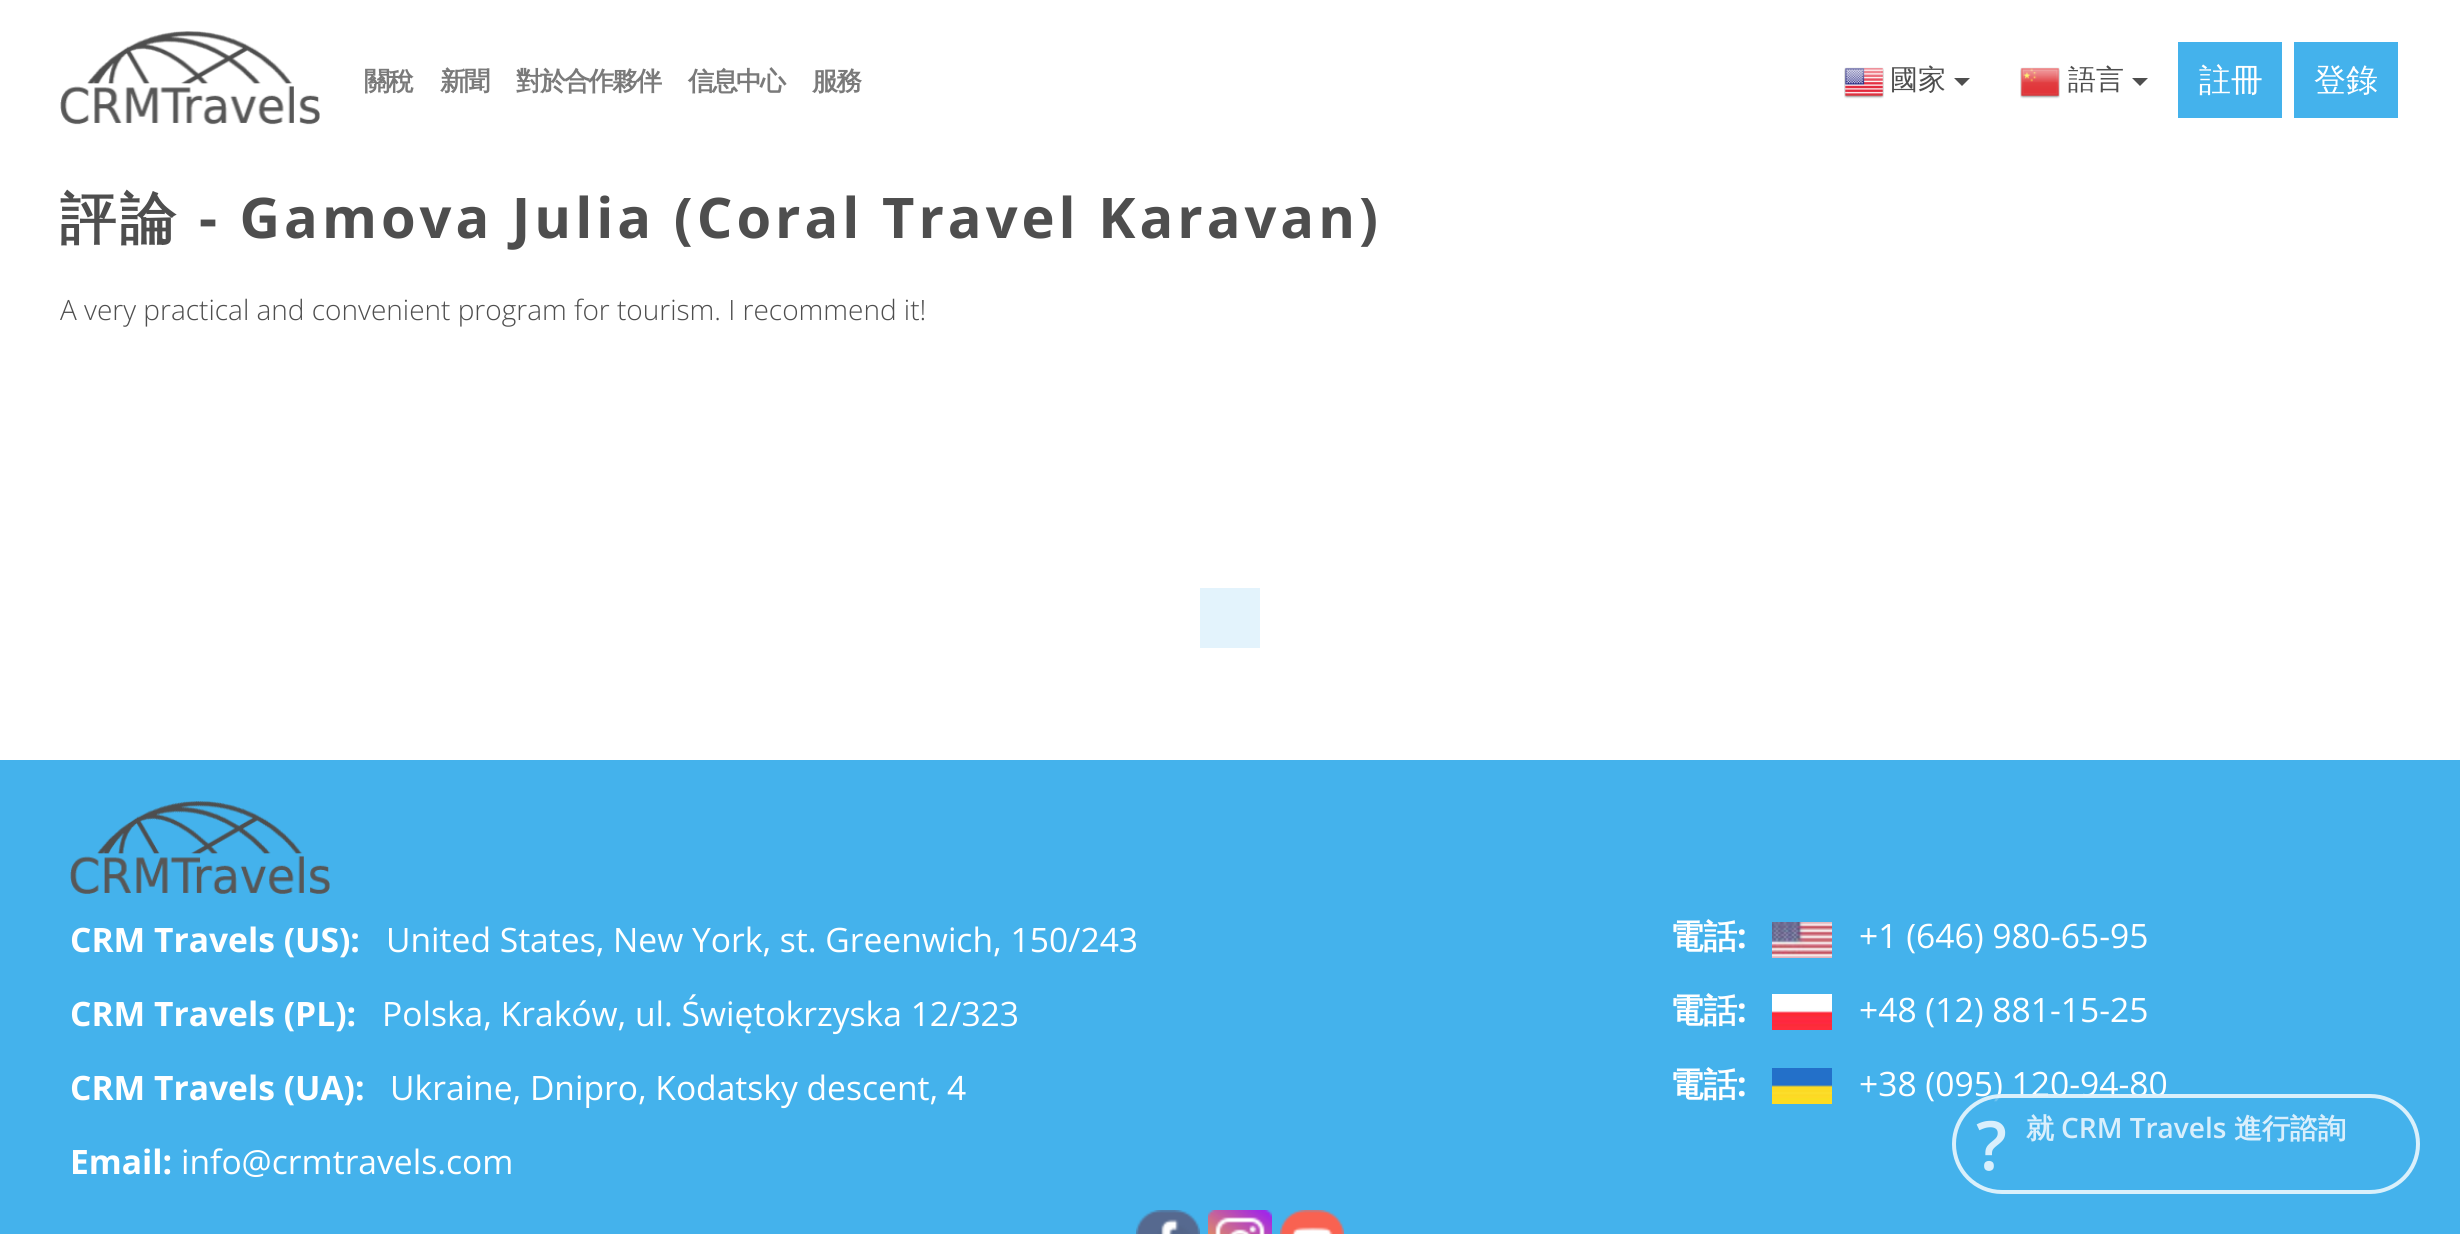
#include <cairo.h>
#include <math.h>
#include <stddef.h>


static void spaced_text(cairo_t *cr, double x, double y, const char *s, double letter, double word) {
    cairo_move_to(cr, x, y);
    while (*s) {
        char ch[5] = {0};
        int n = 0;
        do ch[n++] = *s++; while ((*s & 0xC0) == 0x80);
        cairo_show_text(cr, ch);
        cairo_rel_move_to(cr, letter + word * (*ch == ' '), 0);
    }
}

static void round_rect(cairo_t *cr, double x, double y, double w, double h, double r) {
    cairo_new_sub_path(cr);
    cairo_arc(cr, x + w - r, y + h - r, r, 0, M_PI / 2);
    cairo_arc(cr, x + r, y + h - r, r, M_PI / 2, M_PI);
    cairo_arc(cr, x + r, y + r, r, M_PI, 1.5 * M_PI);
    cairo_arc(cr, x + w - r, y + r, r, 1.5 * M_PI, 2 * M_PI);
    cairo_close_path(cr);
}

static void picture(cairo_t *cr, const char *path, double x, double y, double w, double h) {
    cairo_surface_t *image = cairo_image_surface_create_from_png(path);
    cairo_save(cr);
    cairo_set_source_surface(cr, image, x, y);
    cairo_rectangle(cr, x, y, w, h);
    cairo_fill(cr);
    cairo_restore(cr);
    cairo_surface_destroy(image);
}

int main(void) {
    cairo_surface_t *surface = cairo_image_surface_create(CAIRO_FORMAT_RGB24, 2460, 1234);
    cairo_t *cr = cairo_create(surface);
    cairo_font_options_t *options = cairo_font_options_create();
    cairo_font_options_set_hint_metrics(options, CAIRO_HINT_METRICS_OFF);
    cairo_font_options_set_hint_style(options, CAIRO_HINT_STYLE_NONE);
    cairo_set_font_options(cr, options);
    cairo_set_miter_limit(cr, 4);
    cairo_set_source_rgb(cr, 1, 1, 1);
    cairo_paint(cr);
    picture(cr, "img1.png", 60, 31, 260, 94);
    cairo_select_font_face(cr, "WenQuanYi Zen Hei", CAIRO_FONT_SLANT_NORMAL, CAIRO_FONT_WEIGHT_BOLD);
    cairo_set_font_size(cr, 26);
    cairo_set_source_rgb(cr, 0.478, 0.478, 0.478);
    spaced_text(cr, 364, 90, "關稅", -2, 0);
    spaced_text(cr, 440, 90, "新聞", -2, 0);
    spaced_text(cr, 516, 90, "對於合作夥伴", -2, 0);
    spaced_text(cr, 688, 90, "信息中心", -2, 0);
    spaced_text(cr, 812, 90, "服務", -2, 0);
    picture(cr, "img2.png", 1844, 67, 40, 32);
    cairo_select_font_face(cr, "WenQuanYi Zen Hei Medium", CAIRO_FONT_SLANT_NORMAL, CAIRO_FONT_WEIGHT_NORMAL);
    cairo_set_font_size(cr, 28);
    cairo_set_source_rgb(cr, 0.306, 0.306, 0.306);
    cairo_move_to(cr, 1890, 89);
    cairo_show_text(cr, "國家");
    cairo_new_path(cr);
    cairo_move_to(cr, 1954, 78);
    cairo_line_to(cr, 1970, 78);
    cairo_line_to(cr, 1962, 86);
    cairo_close_path(cr);
    cairo_fill(cr);
    picture(cr, "img3.png", 2020, 67, 40, 32);
    cairo_move_to(cr, 2068, 89);
    cairo_show_text(cr, "語言");
    cairo_new_path(cr);
    cairo_move_to(cr, 2132, 78);
    cairo_line_to(cr, 2148, 78);
    cairo_line_to(cr, 2140, 86);
    cairo_close_path(cr);
    cairo_fill(cr);
    cairo_set_source_rgb(cr, 0.267, 0.698, 0.925);
    cairo_rectangle(cr, 2178, 42, 104, 76);
    cairo_fill(cr);
    cairo_set_font_size(cr, 32);
    cairo_set_source_rgb(cr, 1, 1, 1);
    cairo_move_to(cr, 2199, 91);
    cairo_show_text(cr, "註冊");
    cairo_set_source_rgb(cr, 0.267, 0.698, 0.925);
    cairo_rectangle(cr, 2294, 42, 104, 76);
    cairo_fill(cr);
    cairo_set_source_rgb(cr, 1, 1, 1);
    cairo_move_to(cr, 2314, 91);
    cairo_show_text(cr, "登錄");
    cairo_select_font_face(cr, "WenQuanYi Zen Hei", CAIRO_FONT_SLANT_NORMAL, CAIRO_FONT_WEIGHT_BOLD);
    cairo_set_font_size(cr, 56);
    cairo_set_source_rgb(cr, 0.306, 0.306, 0.306);
    spaced_text(cr, 60, 238, "評論", 4, 0);
    cairo_select_font_face(cr, "Open Sans", CAIRO_FONT_SLANT_NORMAL, CAIRO_FONT_WEIGHT_BOLD);
    spaced_text(cr, 199, 238, "- Gamova Julia (Coral Travel Karavan)", 4, 0);
    cairo_select_font_face(cr, "Open Sans Light", CAIRO_FONT_SLANT_NORMAL, CAIRO_FONT_WEIGHT_NORMAL);
    cairo_set_font_size(cr, 28);
    cairo_move_to(cr, 60, 320);
    cairo_show_text(cr, "A very practical and convenient program for tourism. I recommend it!");
    cairo_set_source_rgb(cr, 0.89, 0.953, 0.988);
    cairo_rectangle(cr, 1200, 588, 60, 60);
    cairo_fill(cr);
    cairo_set_source_rgb(cr, 0.267, 0.698, 0.925);
    cairo_rectangle(cr, 0, 760, 2460, 474);
    cairo_fill(cr);
    picture(cr, "img4.png", 70, 801, 260, 93);
    cairo_select_font_face(cr, "Open Sans", CAIRO_FONT_SLANT_NORMAL, CAIRO_FONT_WEIGHT_BOLD);
    cairo_set_font_size(cr, 33.6);
    cairo_set_source_rgb(cr, 1, 1, 1);
    cairo_move_to(cr, 70, 952);
    cairo_show_text(cr, "CRM Travels (US):");
    cairo_select_font_face(cr, "Open Sans", CAIRO_FONT_SLANT_NORMAL, CAIRO_FONT_WEIGHT_NORMAL);
    cairo_move_to(cr, 386, 952);
    cairo_show_text(cr, "United States, New York, st. Greenwich, 150/243");
    cairo_select_font_face(cr, "Open Sans", CAIRO_FONT_SLANT_NORMAL, CAIRO_FONT_WEIGHT_BOLD);
    cairo_move_to(cr, 70, 1026);
    cairo_show_text(cr, "CRM Travels (PL):");
    cairo_select_font_face(cr, "Open Sans", CAIRO_FONT_SLANT_NORMAL, CAIRO_FONT_WEIGHT_NORMAL);
    cairo_move_to(cr, 382, 1026);
    cairo_show_text(cr, "Polska, Kraków, ul. Świętokrzyska 12/323");
    cairo_select_font_face(cr, "Open Sans", CAIRO_FONT_SLANT_NORMAL, CAIRO_FONT_WEIGHT_BOLD);
    cairo_move_to(cr, 70, 1100);
    cairo_show_text(cr, "CRM Travels (UA):");
    cairo_select_font_face(cr, "Open Sans", CAIRO_FONT_SLANT_NORMAL, CAIRO_FONT_WEIGHT_NORMAL);
    cairo_move_to(cr, 390, 1100);
    cairo_show_text(cr, "Ukraine, Dnipro, Kodatsky descent, 4");
    cairo_select_font_face(cr, "Open Sans", CAIRO_FONT_SLANT_NORMAL, CAIRO_FONT_WEIGHT_BOLD);
    cairo_move_to(cr, 70, 1174);
    cairo_show_text(cr, "Email:");
    cairo_select_font_face(cr, "Open Sans", CAIRO_FONT_SLANT_NORMAL, CAIRO_FONT_WEIGHT_NORMAL);
    cairo_move_to(cr, 181, 1174);
    cairo_show_text(cr, "info@crmtravels.com");
    cairo_select_font_face(cr, "WenQuanYi Zen Hei", CAIRO_FONT_SLANT_NORMAL, CAIRO_FONT_WEIGHT_BOLD);
    cairo_move_to(cr, 1670, 948);
    cairo_show_text(cr, "電話");
    cairo_select_font_face(cr, "Open Sans", CAIRO_FONT_SLANT_NORMAL, CAIRO_FONT_WEIGHT_BOLD);
    cairo_move_to(cr, 1737, 948);
    cairo_show_text(cr, ":");
    picture(cr, "img5.png", 1772, 922, 60, 36);
    cairo_select_font_face(cr, "Open Sans", CAIRO_FONT_SLANT_NORMAL, CAIRO_FONT_WEIGHT_NORMAL);
    cairo_move_to(cr, 1859, 948);
    cairo_show_text(cr, "+1 (646) 980-65-95");
    cairo_select_font_face(cr, "WenQuanYi Zen Hei", CAIRO_FONT_SLANT_NORMAL, CAIRO_FONT_WEIGHT_BOLD);
    cairo_move_to(cr, 1670, 1022);
    cairo_show_text(cr, "電話");
    cairo_select_font_face(cr, "Open Sans", CAIRO_FONT_SLANT_NORMAL, CAIRO_FONT_WEIGHT_BOLD);
    cairo_move_to(cr, 1737, 1022);
    cairo_show_text(cr, ":");
    picture(cr, "img6.png", 1772, 994, 60, 36);
    cairo_select_font_face(cr, "Open Sans", CAIRO_FONT_SLANT_NORMAL, CAIRO_FONT_WEIGHT_NORMAL);
    cairo_move_to(cr, 1859, 1022);
    cairo_show_text(cr, "+48 (12) 881-15-25");
    cairo_select_font_face(cr, "WenQuanYi Zen Hei", CAIRO_FONT_SLANT_NORMAL, CAIRO_FONT_WEIGHT_BOLD);
    cairo_move_to(cr, 1670, 1096);
    cairo_show_text(cr, "電話");
    cairo_select_font_face(cr, "Open Sans", CAIRO_FONT_SLANT_NORMAL, CAIRO_FONT_WEIGHT_BOLD);
    cairo_move_to(cr, 1737, 1096);
    cairo_show_text(cr, ":");
    picture(cr, "img7.png", 1772, 1068, 60, 36);
    cairo_select_font_face(cr, "Open Sans", CAIRO_FONT_SLANT_NORMAL, CAIRO_FONT_WEIGHT_NORMAL);
    cairo_move_to(cr, 1859, 1096);
    cairo_show_text(cr, "+38 (095) 120-94-80");
    picture(cr, "img8.png", 1136, 1210, 64, 24);
    picture(cr, "img9.png", 1208, 1210, 64, 24);
    picture(cr, "img10.png", 1280, 1210, 64, 24);
    cairo_set_source_rgba(cr, 0.267, 0.698, 0.925, 0.8);
    round_rect(cr, 1952, 1094, 468, 100, 50);
    cairo_fill(cr);
    round_rect(cr, 1954, 1096, 464, 96, 48);
    cairo_set_source_rgba(cr, 1, 1, 1, 0.8);
    cairo_set_line_width(cr, 4);
    cairo_stroke(cr);
    cairo_select_font_face(cr, "Open Sans SemiBold", CAIRO_FONT_SLANT_NORMAL, CAIRO_FONT_WEIGHT_NORMAL);
    cairo_set_font_size(cr, 68);
    cairo_set_source_rgb(cr, 0.855, 0.937, 0.988);
    cairo_move_to(cr, 1976, 1170);
    cairo_show_text(cr, "?");
    cairo_select_font_face(cr, "WenQuanYi Zen Hei", CAIRO_FONT_SLANT_NORMAL, CAIRO_FONT_WEIGHT_BOLD);
    cairo_set_font_size(cr, 28);
    cairo_move_to(cr, 2026, 1138);
    cairo_show_text(cr, "就");
    cairo_select_font_face(cr, "Open Sans SemiBold", CAIRO_FONT_SLANT_NORMAL, CAIRO_FONT_WEIGHT_NORMAL);
    cairo_move_to(cr, 2061, 1138);
    cairo_show_text(cr, "CRM Travels");
    cairo_select_font_face(cr, "WenQuanYi Zen Hei", CAIRO_FONT_SLANT_NORMAL, CAIRO_FONT_WEIGHT_BOLD);
    cairo_move_to(cr, 2234, 1138);
    cairo_show_text(cr, "進行諮詢");
    cairo_surface_write_to_png(surface, "page.png");
    cairo_font_options_destroy(options);
    cairo_destroy(cr);
    cairo_surface_destroy(surface);
    return 0;
}
